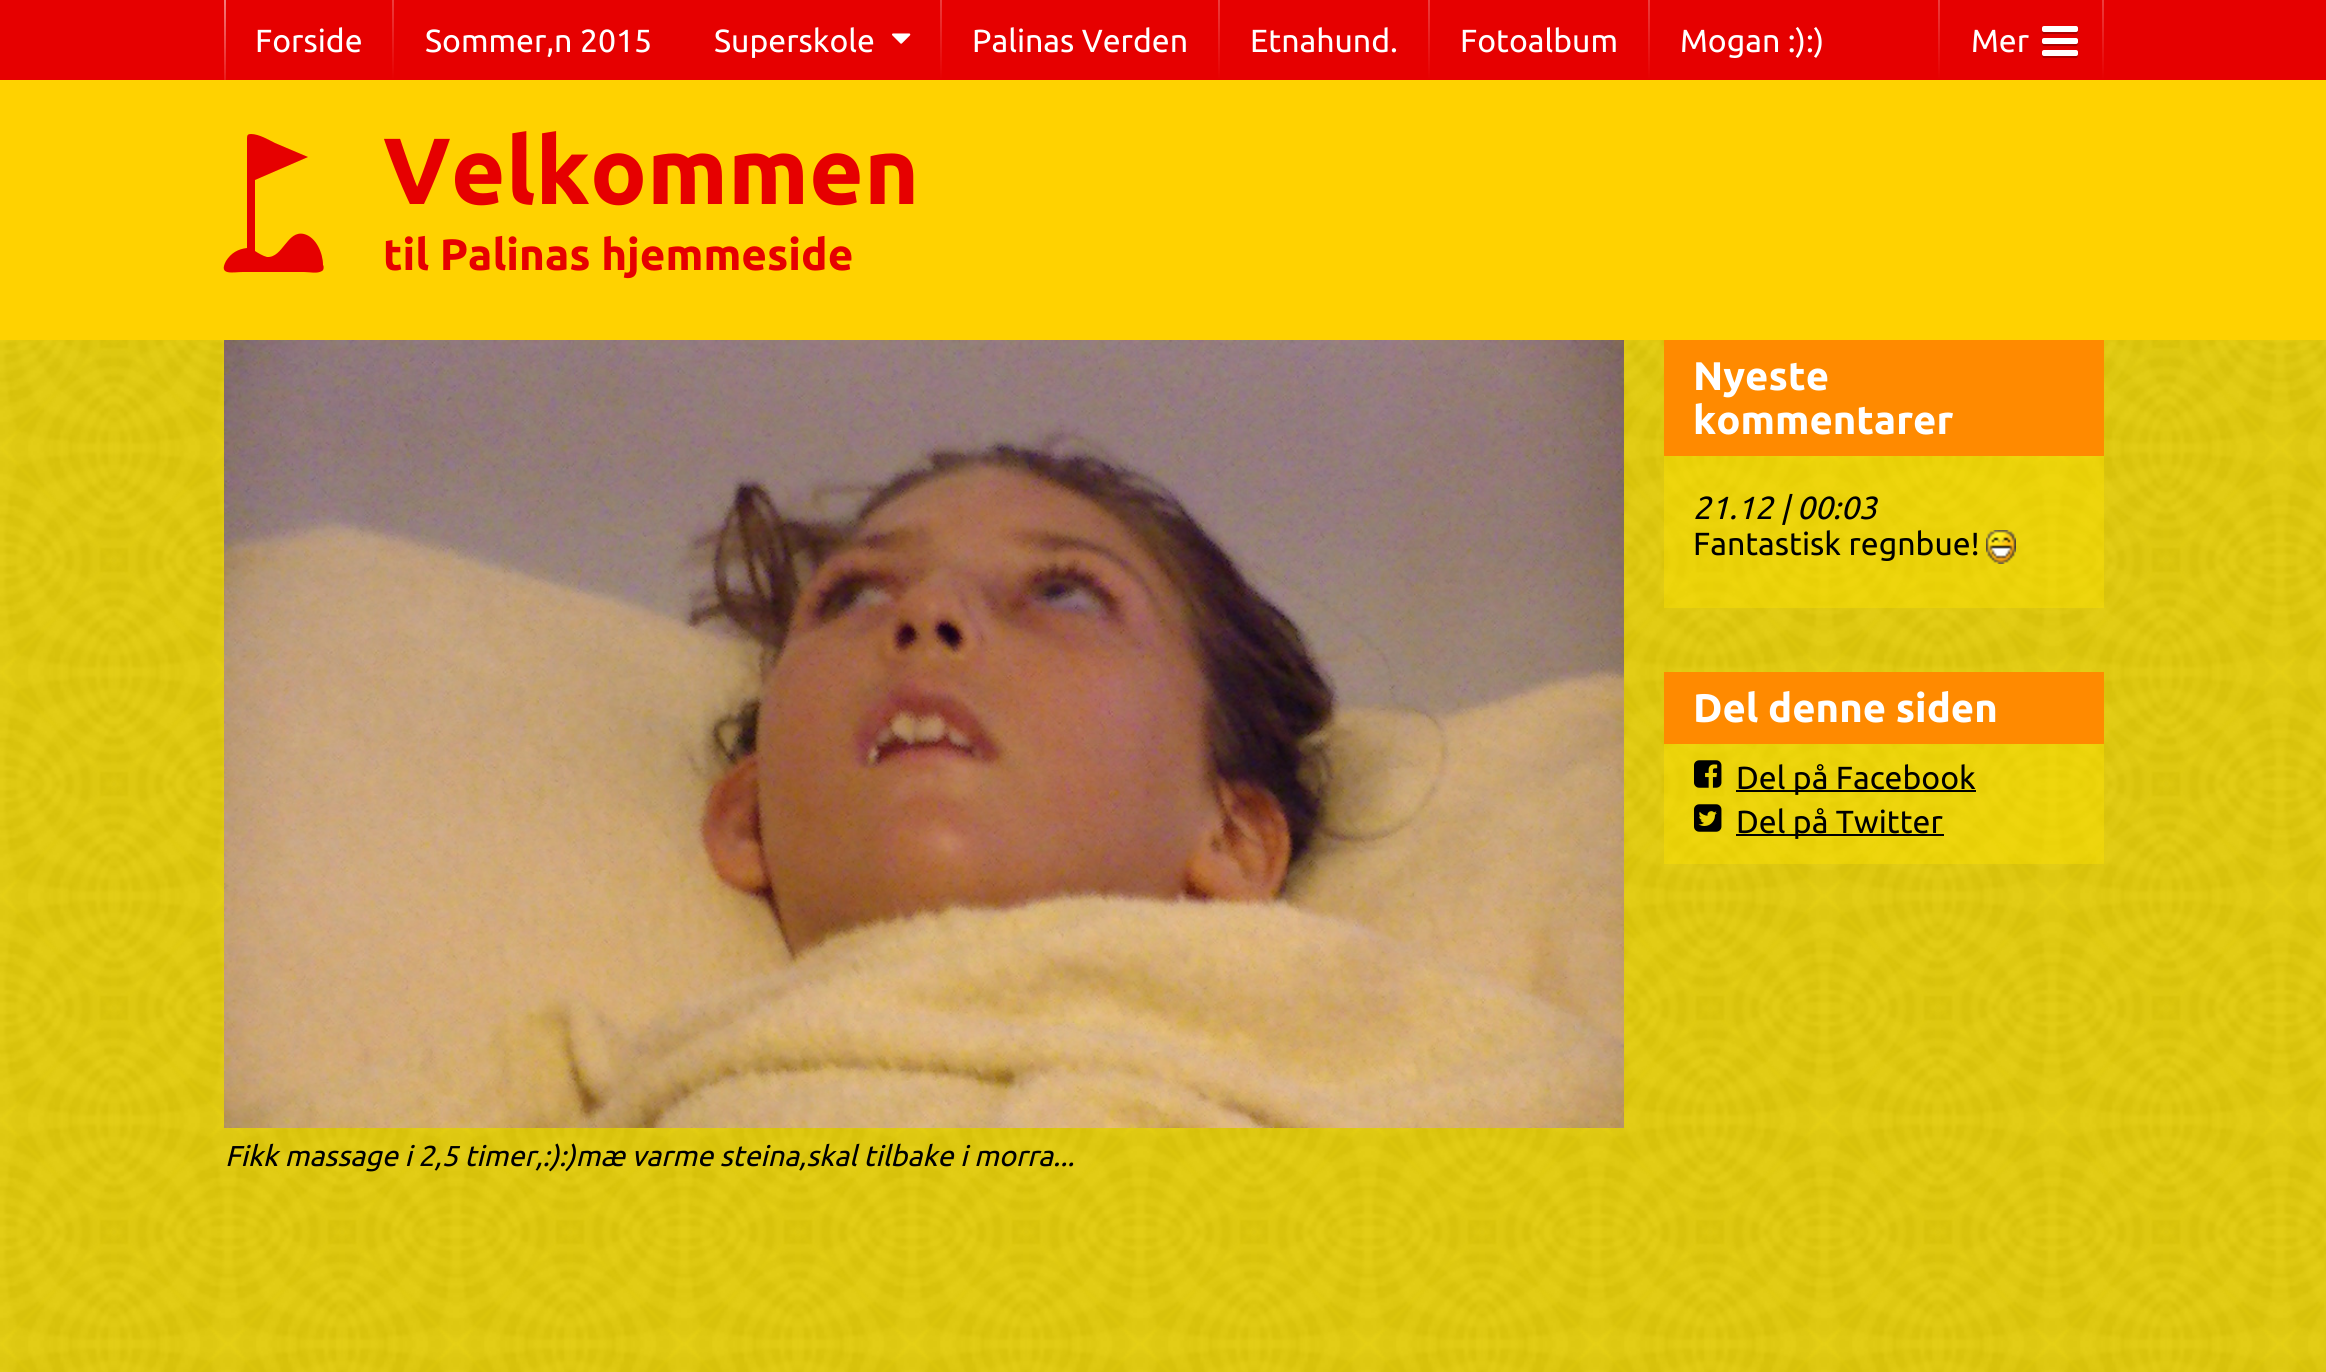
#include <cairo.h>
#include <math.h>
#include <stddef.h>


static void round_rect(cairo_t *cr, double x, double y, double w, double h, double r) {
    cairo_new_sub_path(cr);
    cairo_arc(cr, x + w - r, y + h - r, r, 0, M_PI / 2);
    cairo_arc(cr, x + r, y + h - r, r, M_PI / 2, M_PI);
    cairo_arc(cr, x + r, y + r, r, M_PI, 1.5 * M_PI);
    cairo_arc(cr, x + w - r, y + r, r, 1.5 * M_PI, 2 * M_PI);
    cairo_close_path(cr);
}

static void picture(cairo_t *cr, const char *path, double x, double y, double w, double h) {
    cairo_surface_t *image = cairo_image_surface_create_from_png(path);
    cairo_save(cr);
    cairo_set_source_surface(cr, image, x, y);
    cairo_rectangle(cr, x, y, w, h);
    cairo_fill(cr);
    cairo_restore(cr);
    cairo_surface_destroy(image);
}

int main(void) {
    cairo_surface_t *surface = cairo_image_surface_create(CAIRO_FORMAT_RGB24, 2326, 1372);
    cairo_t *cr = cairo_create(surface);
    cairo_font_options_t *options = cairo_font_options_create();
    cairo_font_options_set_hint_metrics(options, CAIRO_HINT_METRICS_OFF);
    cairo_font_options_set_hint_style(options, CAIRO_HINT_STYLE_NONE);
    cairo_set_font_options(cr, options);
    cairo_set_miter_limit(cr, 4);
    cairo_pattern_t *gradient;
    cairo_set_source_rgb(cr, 1, 0.894, 0);
    cairo_paint(cr);
    picture(cr, "img1.png", 0, 340, 2326, 1032);
    cairo_set_source_rgb(cr, 1, 0.824, 0);
    cairo_rectangle(cr, 0, 80, 2326, 260);
    cairo_fill(cr);
    cairo_set_source_rgb(cr, 0.902, 0, 0);
    cairo_rectangle(cr, 0, 0, 2326, 80);
    cairo_fill(cr);
    gradient = cairo_pattern_create_linear(225, 0, 225, 80);
    cairo_pattern_add_color_stop_rgba(gradient, 0, 0.925, 0.239, 0.239, 1);
    cairo_pattern_add_color_stop_rgba(gradient, 1, 0.902, 0, 0, 1);
    cairo_set_source(cr, gradient);
    cairo_pattern_destroy(gradient);
    cairo_rectangle(cr, 224, 0, 2, 80);
    cairo_fill(cr);
    cairo_select_font_face(cr, "Ubuntu", CAIRO_FONT_SLANT_NORMAL, CAIRO_FONT_WEIGHT_NORMAL);
    cairo_set_font_size(cr, 32);
    cairo_set_source_rgb(cr, 1, 1, 1);
    cairo_move_to(cr, 255, 52);
    cairo_show_text(cr, "Forside");
    gradient = cairo_pattern_create_linear(393, 0, 393, 80);
    cairo_pattern_add_color_stop_rgba(gradient, 0, 0.925, 0.239, 0.239, 1);
    cairo_pattern_add_color_stop_rgba(gradient, 1, 0.902, 0, 0, 1);
    cairo_set_source(cr, gradient);
    cairo_pattern_destroy(gradient);
    cairo_rectangle(cr, 392, 0, 2, 80);
    cairo_fill(cr);
    cairo_set_source_rgb(cr, 1, 1, 1);
    cairo_move_to(cr, 425, 52);
    cairo_show_text(cr, "Sommer,n 2015");
    cairo_set_source_rgba(cr, 0.961, 0.6, 0.6, 0.24);
    cairo_rectangle(cr, 224, 0, 2, 80);
    cairo_fill(cr);
    gradient = cairo_pattern_create_linear(225, 0, 225, 80);
    cairo_pattern_add_color_stop_rgba(gradient, 0, 1, 1, 1, 0.24);
    cairo_pattern_add_color_stop_rgba(gradient, 1, 0.902, 0, 0, 0.24);
    cairo_set_source(cr, gradient);
    cairo_pattern_destroy(gradient);
    cairo_rectangle(cr, 224, 0, 2, 80);
    cairo_fill(cr);
    cairo_set_source_rgb(cr, 1, 1, 1);
    cairo_move_to(cr, 714, 52);
    cairo_show_text(cr, "Superskole");
    picture(cr, "img2.png", 892, 33, 19, 11);
    gradient = cairo_pattern_create_linear(941, 0, 941, 80);
    cairo_pattern_add_color_stop_rgba(gradient, 0, 0.925, 0.239, 0.239, 1);
    cairo_pattern_add_color_stop_rgba(gradient, 1, 0.902, 0, 0, 1);
    cairo_set_source(cr, gradient);
    cairo_pattern_destroy(gradient);
    cairo_rectangle(cr, 940, 0, 2, 80);
    cairo_fill(cr);
    cairo_set_source_rgb(cr, 1, 1, 1);
    cairo_move_to(cr, 972, 52);
    cairo_show_text(cr, "Palinas Verden");
    gradient = cairo_pattern_create_linear(1219, 0, 1219, 80);
    cairo_pattern_add_color_stop_rgba(gradient, 0, 0.925, 0.239, 0.239, 1);
    cairo_pattern_add_color_stop_rgba(gradient, 1, 0.902, 0, 0, 1);
    cairo_set_source(cr, gradient);
    cairo_pattern_destroy(gradient);
    cairo_rectangle(cr, 1218, 0, 2, 80);
    cairo_fill(cr);
    cairo_set_source_rgb(cr, 1, 1, 1);
    cairo_move_to(cr, 1250, 52);
    cairo_show_text(cr, "Etnahund.");
    gradient = cairo_pattern_create_linear(1429, 0, 1429, 80);
    cairo_pattern_add_color_stop_rgba(gradient, 0, 0.925, 0.239, 0.239, 1);
    cairo_pattern_add_color_stop_rgba(gradient, 1, 0.902, 0, 0, 1);
    cairo_set_source(cr, gradient);
    cairo_pattern_destroy(gradient);
    cairo_rectangle(cr, 1428, 0, 2, 80);
    cairo_fill(cr);
    cairo_set_source_rgb(cr, 1, 1, 1);
    cairo_move_to(cr, 1460, 52);
    cairo_show_text(cr, "Fotoalbum");
    gradient = cairo_pattern_create_linear(1649, 0, 1649, 80);
    cairo_pattern_add_color_stop_rgba(gradient, 0, 0.925, 0.239, 0.239, 1);
    cairo_pattern_add_color_stop_rgba(gradient, 1, 0.902, 0, 0, 1);
    cairo_set_source(cr, gradient);
    cairo_pattern_destroy(gradient);
    cairo_rectangle(cr, 1648, 0, 2, 80);
    cairo_fill(cr);
    cairo_set_source_rgb(cr, 1, 1, 1);
    cairo_move_to(cr, 1680, 52);
    cairo_show_text(cr, "Mogan :):)");
    gradient = cairo_pattern_create_linear(1939, 0, 1939, 80);
    cairo_pattern_add_color_stop_rgba(gradient, 0, 0.925, 0.239, 0.239, 1);
    cairo_pattern_add_color_stop_rgba(gradient, 1, 0.902, 0, 0, 1);
    cairo_set_source(cr, gradient);
    cairo_pattern_destroy(gradient);
    cairo_rectangle(cr, 1938, 0, 2, 80);
    cairo_fill(cr);
    cairo_set_source_rgb(cr, 1, 1, 1);
    cairo_move_to(cr, 1971, 52);
    cairo_show_text(cr, "Mer");
    cairo_set_source_rgb(cr, 0.678, 0, 0);
    cairo_new_path(cr);
    cairo_move_to(cr, 2042, 30);
    cairo_curve_to(cr, 2042, 35.5, 2044, 34, 2049.5, 34);
    cairo_line_to(cr, 2070.5, 34);
    cairo_curve_to(cr, 2076, 34, 2078, 35.5, 2078, 30);
    cairo_curve_to(cr, 2078, 31, 2077, 32, 2076, 32);
    cairo_line_to(cr, 2044, 32);
    cairo_curve_to(cr, 2043, 32, 2042, 31, 2042, 30);
    cairo_close_path(cr);
    cairo_fill(cr);
    cairo_set_source_rgb(cr, 1, 1, 1);
    round_rect(cr, 2042, 26, 36, 6, 2);
    cairo_fill(cr);
    cairo_set_source_rgb(cr, 0.678, 0, 0);
    cairo_new_path(cr);
    cairo_move_to(cr, 2042, 42);
    cairo_curve_to(cr, 2042, 47.5, 2044, 46, 2049.5, 46);
    cairo_line_to(cr, 2070.5, 46);
    cairo_curve_to(cr, 2076, 46, 2078, 47.5, 2078, 42);
    cairo_curve_to(cr, 2078, 43, 2077, 44, 2076, 44);
    cairo_line_to(cr, 2044, 44);
    cairo_curve_to(cr, 2043, 44, 2042, 43, 2042, 42);
    cairo_close_path(cr);
    cairo_fill(cr);
    cairo_set_source_rgb(cr, 1, 1, 1);
    round_rect(cr, 2042, 38, 36, 6, 2);
    cairo_fill(cr);
    cairo_set_source_rgb(cr, 0.678, 0, 0);
    cairo_new_path(cr);
    cairo_move_to(cr, 2042, 54);
    cairo_curve_to(cr, 2042, 59.5, 2044, 58, 2049.5, 58);
    cairo_line_to(cr, 2070.5, 58);
    cairo_curve_to(cr, 2076, 58, 2078, 59.5, 2078, 54);
    cairo_curve_to(cr, 2078, 55, 2077, 56, 2076, 56);
    cairo_line_to(cr, 2044, 56);
    cairo_curve_to(cr, 2043, 56, 2042, 55, 2042, 54);
    cairo_close_path(cr);
    cairo_fill(cr);
    cairo_set_source_rgb(cr, 1, 1, 1);
    round_rect(cr, 2042, 50, 36, 6, 2);
    cairo_fill(cr);
    gradient = cairo_pattern_create_linear(2103, 0, 2103, 80);
    cairo_pattern_add_color_stop_rgba(gradient, 0, 0.925, 0.239, 0.239, 1);
    cairo_pattern_add_color_stop_rgba(gradient, 1, 0.902, 0, 0, 1);
    cairo_set_source(cr, gradient);
    cairo_pattern_destroy(gradient);
    cairo_rectangle(cr, 2102, 0, 2, 80);
    cairo_fill(cr);
    cairo_set_source_rgb(cr, 0.902, 0, 0);
    cairo_new_path(cr);
    cairo_move_to(cr, 251, 134);
    cairo_curve_to(cr, 248, 134, 247, 135, 247, 138);
    cairo_line_to(cr, 247, 248);
    cairo_curve_to(cr, 238, 249, 231, 253, 226, 261);
    cairo_curve_to(cr, 218, 276, 233, 272, 243, 272);
    cairo_line_to(cr, 304, 272);
    cairo_curve_to(cr, 310, 272, 317, 274, 322, 271);
    cairo_curve_to(cr, 324, 270, 324, 266, 323, 265);
    cairo_curve_to(cr, 323, 253, 316, 237, 304, 234);
    cairo_curve_to(cr, 287, 230, 283, 258, 267, 257);
    cairo_curve_to(cr, 263, 256, 258, 253, 255, 251);
    cairo_line_to(cr, 255, 180);
    cairo_line_to(cr, 308, 157);
    cairo_line_to(cr, 275, 143);
    cairo_curve_to(cr, 269, 140, 259, 134, 251, 134);
    cairo_close_path(cr);
    cairo_fill(cr);
    cairo_select_font_face(cr, "Ubuntu", CAIRO_FONT_SLANT_NORMAL, CAIRO_FONT_WEIGHT_BOLD);
    cairo_set_font_size(cr, 94);
    cairo_move_to(cr, 383, 204);
    cairo_show_text(cr, "Velkommen");
    cairo_set_font_size(cr, 44);
    cairo_move_to(cr, 383, 270);
    cairo_show_text(cr, "til Palinas hjemmeside");
    cairo_set_source_rgb(cr, 1, 0.541, 0);
    cairo_rectangle(cr, 1664, 340, 440, 116);
    cairo_fill(cr);
    cairo_set_font_size(cr, 40);
    cairo_set_source_rgb(cr, 1, 1, 1);
    cairo_move_to(cr, 1693, 390);
    cairo_show_text(cr, "Nyeste");
    cairo_move_to(cr, 1693, 434);
    cairo_show_text(cr, "kommentarer");
    cairo_set_source_rgba(cr, 1, 0.894, 0, 0.4);
    cairo_rectangle(cr, 1664, 456, 440, 152);
    cairo_fill(cr);
    cairo_select_font_face(cr, "Ubuntu", CAIRO_FONT_SLANT_ITALIC, CAIRO_FONT_WEIGHT_NORMAL);
    cairo_set_font_size(cr, 32);
    cairo_set_source_rgb(cr, 0, 0, 0);
    cairo_move_to(cr, 1693, 519);
    cairo_show_text(cr, "21.12 | 00:03");
    cairo_select_font_face(cr, "Ubuntu", CAIRO_FONT_SLANT_NORMAL, CAIRO_FONT_WEIGHT_NORMAL);
    cairo_move_to(cr, 1693, 555);
    cairo_show_text(cr, "Fantastisk regnbue!");
    picture(cr, "img3.png", 1986, 530, 30, 34);
    cairo_set_source_rgb(cr, 1, 0.541, 0);
    cairo_rectangle(cr, 1664, 672, 440, 72);
    cairo_fill(cr);
    cairo_select_font_face(cr, "Ubuntu", CAIRO_FONT_SLANT_NORMAL, CAIRO_FONT_WEIGHT_BOLD);
    cairo_set_font_size(cr, 40);
    cairo_set_source_rgb(cr, 1, 1, 1);
    cairo_move_to(cr, 1693, 722);
    cairo_show_text(cr, "Del denne siden");
    cairo_set_source_rgba(cr, 1, 0.894, 0, 0.4);
    cairo_rectangle(cr, 1664, 744, 440, 120);
    cairo_fill(cr);
    picture(cr, "img4.png", 1694, 760, 28, 28);
    cairo_set_source_rgb(cr, 0, 0, 0);
    cairo_rectangle(cr, 1736, 790, 240, 2);
    cairo_fill(cr);
    cairo_select_font_face(cr, "Ubuntu", CAIRO_FONT_SLANT_NORMAL, CAIRO_FONT_WEIGHT_NORMAL);
    cairo_set_font_size(cr, 32);
    cairo_move_to(cr, 1736, 789);
    cairo_show_text(cr, "Del på Facebook");
    picture(cr, "img5.png", 1694, 804, 28, 28);
    cairo_rectangle(cr, 1736, 834, 208, 2);
    cairo_fill(cr);
    cairo_move_to(cr, 1736, 833);
    cairo_show_text(cr, "Del på Twitter");
    picture(cr, "img6.png", 224, 340, 1400, 788);
    cairo_select_font_face(cr, "Ubuntu", CAIRO_FONT_SLANT_ITALIC, CAIRO_FONT_WEIGHT_NORMAL);
    cairo_set_font_size(cr, 28.8);
    cairo_move_to(cr, 225, 1166);
    cairo_show_text(cr, "Fikk massage i 2,5 timer,:):)mæ varme steina,skal tilbake i morra...");
    cairo_surface_write_to_png(surface, "page.png");
    cairo_font_options_destroy(options);
    cairo_destroy(cr);
    cairo_surface_destroy(surface);
    return 0;
}
